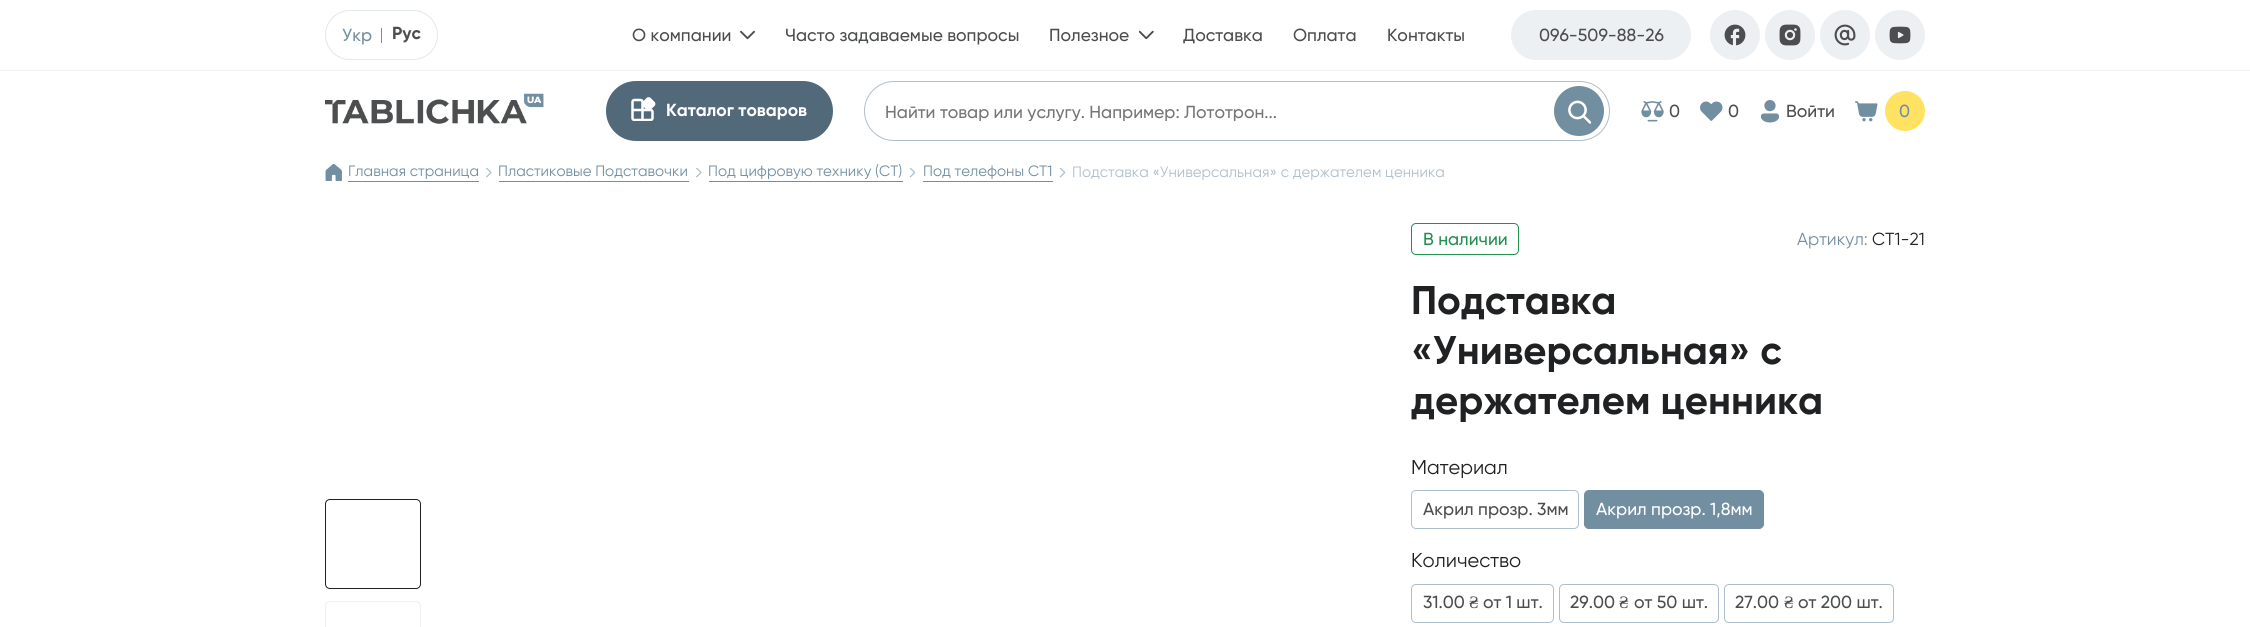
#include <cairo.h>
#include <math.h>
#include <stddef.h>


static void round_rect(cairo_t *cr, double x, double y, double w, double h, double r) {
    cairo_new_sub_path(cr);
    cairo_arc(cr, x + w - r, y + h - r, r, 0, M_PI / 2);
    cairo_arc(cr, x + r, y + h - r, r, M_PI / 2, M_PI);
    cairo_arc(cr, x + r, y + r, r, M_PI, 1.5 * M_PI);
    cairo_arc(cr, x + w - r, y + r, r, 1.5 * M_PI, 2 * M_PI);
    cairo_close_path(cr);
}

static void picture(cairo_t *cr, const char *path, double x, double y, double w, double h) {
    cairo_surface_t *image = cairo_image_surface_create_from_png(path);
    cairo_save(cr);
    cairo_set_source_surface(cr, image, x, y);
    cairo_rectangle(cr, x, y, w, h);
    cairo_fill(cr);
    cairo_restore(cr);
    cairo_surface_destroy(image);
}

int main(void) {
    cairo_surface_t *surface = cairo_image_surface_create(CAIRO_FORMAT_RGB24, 2250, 627);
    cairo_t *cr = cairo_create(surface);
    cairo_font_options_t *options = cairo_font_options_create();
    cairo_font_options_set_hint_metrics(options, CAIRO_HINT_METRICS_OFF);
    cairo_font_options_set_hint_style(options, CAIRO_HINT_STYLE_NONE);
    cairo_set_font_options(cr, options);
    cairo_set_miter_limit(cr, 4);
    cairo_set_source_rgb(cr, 1, 1, 1);
    cairo_paint(cr);
    cairo_set_source_rgb(cr, 0.929, 0.941, 0.953);
    cairo_rectangle(cr, 0, 70, 2250, 1);
    cairo_fill(cr);
    round_rect(cr, 325.5, 10.5, 112, 49, 24.5);
    cairo_set_source_rgb(cr, 0.89, 0.91, 0.925);
    cairo_set_line_width(cr, 1);
    cairo_stroke(cr);
    cairo_select_font_face(cr, "Gilroy Medium", CAIRO_FONT_SLANT_NORMAL, CAIRO_FONT_WEIGHT_NORMAL);
    cairo_set_font_size(cr, 17.5);
    cairo_set_source_rgb(cr, 0.447, 0.557, 0.631);
    cairo_move_to(cr, 342, 41);
    cairo_show_text(cr, "Укр");
    cairo_rectangle(cr, 381, 28, 1, 15);
    cairo_fill(cr);
    cairo_select_font_face(cr, "Gilroy", CAIRO_FONT_SLANT_NORMAL, CAIRO_FONT_WEIGHT_BOLD);
    cairo_set_source_rgb(cr, 0.294, 0.302, 0.306);
    cairo_move_to(cr, 392, 39);
    cairo_show_text(cr, "Рус");
    cairo_select_font_face(cr, "Gilroy Medium", CAIRO_FONT_SLANT_NORMAL, CAIRO_FONT_WEIGHT_NORMAL);
    cairo_move_to(cr, 632, 41);
    cairo_show_text(cr, "О компании");
    picture(cr, "img1.png", 740, 30, 15, 10);
    cairo_move_to(cr, 785, 41);
    cairo_show_text(cr, "Часто задаваемые вопросы");
    cairo_move_to(cr, 1049, 41);
    cairo_show_text(cr, "Полезное");
    picture(cr, "img2.png", 1139, 30, 15, 10);
    cairo_move_to(cr, 1183, 41);
    cairo_show_text(cr, "Доставка");
    cairo_move_to(cr, 1293, 41);
    cairo_show_text(cr, "Оплата");
    cairo_move_to(cr, 1387, 41);
    cairo_show_text(cr, "Контакты");
    cairo_set_source_rgb(cr, 0.929, 0.941, 0.953);
    round_rect(cr, 1511, 10, 180, 50, 25);
    cairo_fill(cr);
    cairo_set_source_rgb(cr, 0.294, 0.302, 0.306);
    cairo_move_to(cr, 1539, 41);
    cairo_show_text(cr, "096-509-88-26");
    cairo_set_source_rgb(cr, 0.929, 0.941, 0.953);
    cairo_new_path(cr);
    cairo_arc(cr, 1735, 35, 25, 0, 2 * M_PI);
    cairo_fill(cr);
    picture(cr, "img3.png", 1724, 24, 22, 22);
    cairo_arc(cr, 1790, 35, 25, 0, 2 * M_PI);
    cairo_fill(cr);
    picture(cr, "img4.png", 1779, 24, 22, 22);
    cairo_arc(cr, 1845, 35, 25, 0, 2 * M_PI);
    cairo_fill(cr);
    picture(cr, "img5.png", 1834, 24, 22, 22);
    cairo_arc(cr, 1900, 35, 25, 0, 2 * M_PI);
    cairo_fill(cr);
    picture(cr, "img6.png", 1889, 26, 22, 18);
    picture(cr, "img7.png", 325, 93, 219, 31);
    cairo_set_source_rgb(cr, 0.322, 0.412, 0.478);
    round_rect(cr, 606, 81, 227, 60, 30);
    cairo_fill(cr);
    picture(cr, "img8.png", 631, 97, 25, 24);
    cairo_select_font_face(cr, "Gilroy", CAIRO_FONT_SLANT_NORMAL, CAIRO_FONT_WEIGHT_BOLD);
    cairo_set_source_rgb(cr, 1, 1, 1);
    cairo_move_to(cr, 666, 116);
    cairo_show_text(cr, "Каталог товаров");
    round_rect(cr, 864.5, 81.5, 745, 59, 29.5);
    cairo_set_source_rgb(cr, 0.686, 0.749, 0.792);
    cairo_stroke(cr);
    cairo_save(cr);
    cairo_rectangle(cr, 885, 101, 661, 20);
    cairo_clip(cr);
    cairo_select_font_face(cr, "Gilroy Medium", CAIRO_FONT_SLANT_NORMAL, CAIRO_FONT_WEIGHT_NORMAL);
    cairo_set_source_rgb(cr, 0.459, 0.459, 0.459);
    cairo_move_to(cr, 885, 118);
    cairo_show_text(cr, "Найти товар или услугу. Например: Лототрон...");
    cairo_restore(cr);
    cairo_set_source_rgb(cr, 0.447, 0.557, 0.631);
    cairo_new_path(cr);
    cairo_arc(cr, 1579, 111, 25, 0, 2 * M_PI);
    cairo_fill(cr);
    picture(cr, "img9.png", 1568, 100, 23, 24);
    picture(cr, "img10.png", 1641, 101, 23, 21);
    cairo_select_font_face(cr, "Gilroy Medium", CAIRO_FONT_SLANT_NORMAL, CAIRO_FONT_WEIGHT_NORMAL);
    cairo_set_source_rgb(cr, 0.294, 0.302, 0.306);
    cairo_move_to(cr, 1669, 117);
    cairo_show_text(cr, "0");
    picture(cr, "img11.png", 1700, 101, 23, 20);
    cairo_move_to(cr, 1728, 117);
    cairo_show_text(cr, "0");
    picture(cr, "img12.png", 1761, 100, 18, 23);
    cairo_move_to(cr, 1786, 117);
    cairo_show_text(cr, "Войти");
    picture(cr, "img13.png", 1855, 101, 23, 21);
    cairo_set_source_rgb(cr, 1, 0.886, 0.38);
    cairo_arc(cr, 1905, 111, 20, 0, 2 * M_PI);
    cairo_fill(cr);
    cairo_set_source_rgb(cr, 0.447, 0.557, 0.631);
    cairo_move_to(cr, 1899, 117);
    cairo_show_text(cr, "0");
    picture(cr, "img14.png", 325, 164, 17, 17);
    cairo_rectangle(cr, 348, 181, 131, 1);
    cairo_fill(cr);
    cairo_select_font_face(cr, "Gilroy", CAIRO_FONT_SLANT_NORMAL, CAIRO_FONT_WEIGHT_NORMAL);
    cairo_set_font_size(cr, 15);
    cairo_move_to(cr, 348, 176);
    cairo_show_text(cr, "Главная страница");
    picture(cr, "img15.png", 486, 168, 6, 10);
    cairo_rectangle(cr, 499, 181, 190, 1);
    cairo_fill(cr);
    cairo_move_to(cr, 498, 176);
    cairo_show_text(cr, "Пластиковые Подставочки");
    picture(cr, "img15.png", 696, 168, 6, 10);
    cairo_rectangle(cr, 709, 181, 194, 1);
    cairo_fill(cr);
    cairo_move_to(cr, 708, 176);
    cairo_show_text(cr, "Под цифровую технику (CT)");
    picture(cr, "img16.png", 909, 168, 7, 10);
    cairo_rectangle(cr, 923, 181, 130, 1);
    cairo_fill(cr);
    cairo_move_to(cr, 923, 176);
    cairo_show_text(cr, "Под телефоны СТ1");
    picture(cr, "img16.png", 1059, 168, 7, 10);
    cairo_set_source_rgb(cr, 0.686, 0.749, 0.792);
    cairo_move_to(cr, 1072, 177);
    cairo_show_text(cr, "Подставка «Универсальная» с держателем ценника");
    round_rect(cr, 325.5, 499.5, 95, 89, 4.5);
    cairo_set_source_rgb(cr, 0.125, 0.129, 0.133);
    cairo_stroke(cr);
    round_rect(cr, 325.5, 601.5, 95, 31, 4.5);
    cairo_set_source_rgb(cr, 0.929, 0.941, 0.953);
    cairo_stroke(cr);
    round_rect(cr, 1411.5, 223.5, 107, 31, 4.5);
    cairo_set_source_rgb(cr, 0.129, 0.561, 0.302);
    cairo_stroke(cr);
    cairo_select_font_face(cr, "Gilroy Medium", CAIRO_FONT_SLANT_NORMAL, CAIRO_FONT_WEIGHT_NORMAL);
    cairo_set_font_size(cr, 17.5);
    cairo_move_to(cr, 1423, 245);
    cairo_show_text(cr, "В наличии");
    cairo_select_font_face(cr, "Gilroy", CAIRO_FONT_SLANT_NORMAL, CAIRO_FONT_WEIGHT_NORMAL);
    cairo_set_source_rgb(cr, 0.447, 0.557, 0.631);
    cairo_move_to(cr, 1797, 245);
    cairo_show_text(cr, "Артикул:");
    cairo_set_source_rgb(cr, 0.125, 0.129, 0.133);
    cairo_move_to(cr, 1872, 245);
    cairo_show_text(cr, "CT1-21");
    cairo_select_font_face(cr, "Gilroy", CAIRO_FONT_SLANT_NORMAL, CAIRO_FONT_WEIGHT_BOLD);
    cairo_set_font_size(cr, 40);
    cairo_move_to(cr, 1411, 314);
    cairo_show_text(cr, "Подставка");
    cairo_move_to(cr, 1411, 364);
    cairo_show_text(cr, "«Универсальная» с");
    cairo_move_to(cr, 1411, 414);
    cairo_show_text(cr, "держателем ценника");
    cairo_select_font_face(cr, "Gilroy", CAIRO_FONT_SLANT_NORMAL, CAIRO_FONT_WEIGHT_NORMAL);
    cairo_set_font_size(cr, 20);
    cairo_move_to(cr, 1411, 474);
    cairo_show_text(cr, "Материал");
    round_rect(cr, 1411.5, 490.5, 167, 38, 4.5);
    cairo_set_source_rgb(cr, 0.686, 0.749, 0.792);
    cairo_stroke(cr);
    cairo_select_font_face(cr, "Gilroy Medium", CAIRO_FONT_SLANT_NORMAL, CAIRO_FONT_WEIGHT_NORMAL);
    cairo_set_font_size(cr, 17.5);
    cairo_set_source_rgb(cr, 0.294, 0.302, 0.306);
    cairo_move_to(cr, 1423, 515);
    cairo_show_text(cr, "Акрил прозр. 3мм");
    cairo_set_source_rgb(cr, 0.447, 0.557, 0.631);
    round_rect(cr, 1584.5, 490.5, 179, 38, 4.5);
    cairo_fill_preserve(cr);
    cairo_stroke(cr);
    cairo_set_source_rgb(cr, 1, 1, 1);
    cairo_move_to(cr, 1596, 515);
    cairo_show_text(cr, "Акрил прозр. 1,8мм");
    cairo_select_font_face(cr, "Gilroy", CAIRO_FONT_SLANT_NORMAL, CAIRO_FONT_WEIGHT_NORMAL);
    cairo_set_font_size(cr, 20);
    cairo_set_source_rgb(cr, 0.125, 0.129, 0.133);
    cairo_move_to(cr, 1411, 567);
    cairo_show_text(cr, "Количество");
    round_rect(cr, 1411.5, 584.5, 142, 38, 4.5);
    cairo_set_source_rgb(cr, 0.686, 0.749, 0.792);
    cairo_stroke(cr);
    cairo_select_font_face(cr, "Gilroy Medium", CAIRO_FONT_SLANT_NORMAL, CAIRO_FONT_WEIGHT_NORMAL);
    cairo_set_font_size(cr, 17.5);
    cairo_set_source_rgb(cr, 0.294, 0.302, 0.306);
    cairo_move_to(cr, 1423, 608);
    cairo_show_text(cr, "31.00");
    cairo_select_font_face(cr, "Liberation Serif", CAIRO_FONT_SLANT_NORMAL, CAIRO_FONT_WEIGHT_NORMAL);
    cairo_move_to(cr, 1469, 608);
    cairo_show_text(cr, "₴");
    cairo_select_font_face(cr, "Gilroy Medium", CAIRO_FONT_SLANT_NORMAL, CAIRO_FONT_WEIGHT_NORMAL);
    cairo_move_to(cr, 1483, 608);
    cairo_show_text(cr, "от 1 шт.");
    round_rect(cr, 1559.5, 584.5, 159, 38, 4.5);
    cairo_set_source_rgb(cr, 0.686, 0.749, 0.792);
    cairo_stroke(cr);
    cairo_set_source_rgb(cr, 0.294, 0.302, 0.306);
    cairo_move_to(cr, 1570, 608);
    cairo_show_text(cr, "29.00");
    cairo_select_font_face(cr, "Liberation Serif", CAIRO_FONT_SLANT_NORMAL, CAIRO_FONT_WEIGHT_NORMAL);
    cairo_move_to(cr, 1619, 608);
    cairo_show_text(cr, "₴");
    cairo_select_font_face(cr, "Gilroy Medium", CAIRO_FONT_SLANT_NORMAL, CAIRO_FONT_WEIGHT_NORMAL);
    cairo_move_to(cr, 1634, 608);
    cairo_show_text(cr, "от 50 шт.");
    round_rect(cr, 1724.5, 584.5, 169, 38, 4.5);
    cairo_set_source_rgb(cr, 0.686, 0.749, 0.792);
    cairo_stroke(cr);
    cairo_set_source_rgb(cr, 0.294, 0.302, 0.306);
    cairo_move_to(cr, 1735, 608);
    cairo_show_text(cr, "27.00");
    cairo_select_font_face(cr, "Liberation Serif", CAIRO_FONT_SLANT_NORMAL, CAIRO_FONT_WEIGHT_NORMAL);
    cairo_move_to(cr, 1784, 608);
    cairo_show_text(cr, "₴");
    cairo_select_font_face(cr, "Gilroy Medium", CAIRO_FONT_SLANT_NORMAL, CAIRO_FONT_WEIGHT_NORMAL);
    cairo_move_to(cr, 1798, 608);
    cairo_show_text(cr, "от 200 шт.");
    cairo_surface_write_to_png(surface, "page.png");
    cairo_font_options_destroy(options);
    cairo_destroy(cr);
    cairo_surface_destroy(surface);
    return 0;
}
